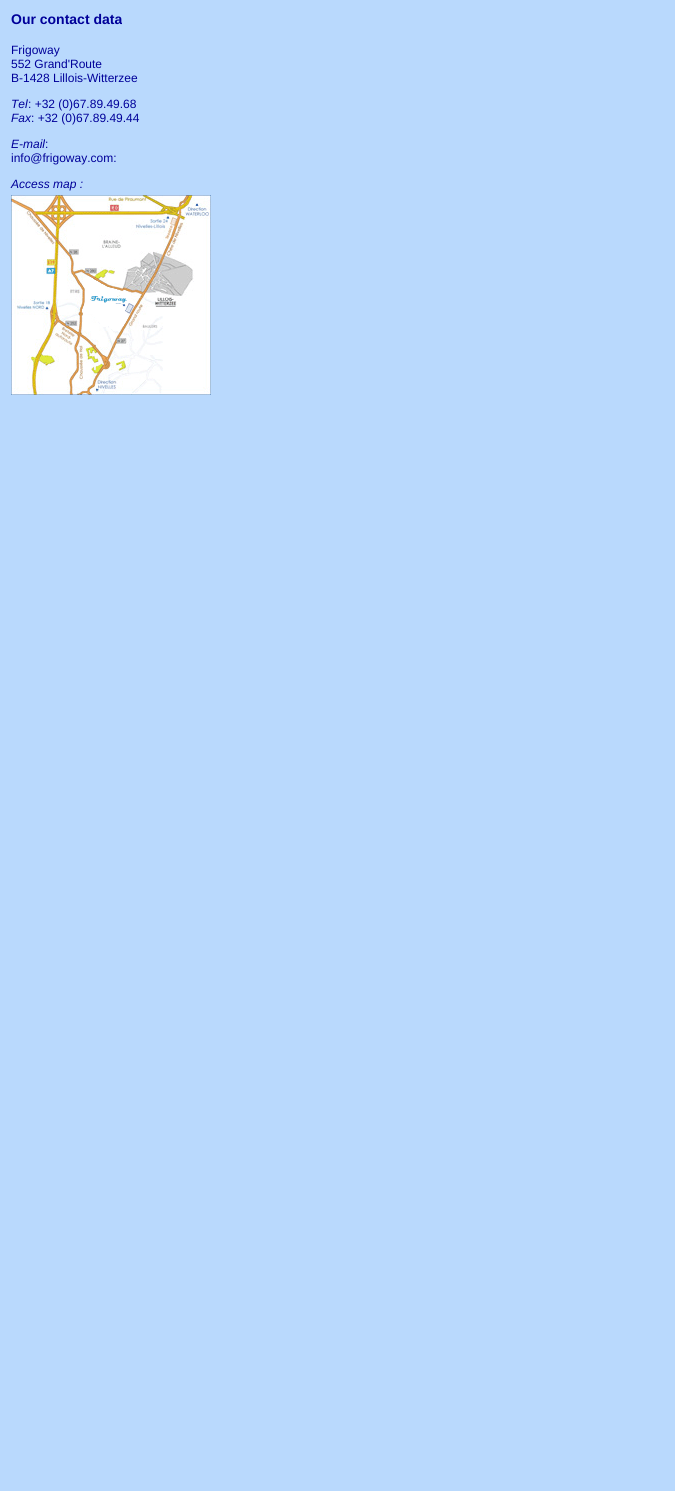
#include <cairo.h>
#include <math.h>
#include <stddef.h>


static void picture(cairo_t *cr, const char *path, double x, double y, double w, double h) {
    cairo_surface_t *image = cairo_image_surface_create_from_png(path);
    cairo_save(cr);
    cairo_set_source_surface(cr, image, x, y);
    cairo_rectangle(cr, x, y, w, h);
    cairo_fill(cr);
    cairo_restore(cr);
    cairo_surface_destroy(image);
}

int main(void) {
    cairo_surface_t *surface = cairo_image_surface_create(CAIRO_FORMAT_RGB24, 675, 1491);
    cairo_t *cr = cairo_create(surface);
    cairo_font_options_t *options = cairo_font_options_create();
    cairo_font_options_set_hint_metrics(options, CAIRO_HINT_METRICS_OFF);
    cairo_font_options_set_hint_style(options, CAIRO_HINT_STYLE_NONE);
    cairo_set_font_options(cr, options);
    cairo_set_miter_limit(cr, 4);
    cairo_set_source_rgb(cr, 0.725, 0.851, 0.992);
    cairo_paint(cr);
    cairo_select_font_face(cr, "Liberation Sans", CAIRO_FONT_SLANT_NORMAL, CAIRO_FONT_WEIGHT_BOLD);
    cairo_set_font_size(cr, 14);
    cairo_set_source_rgb(cr, 0, 0, 0.6);
    cairo_move_to(cr, 11, 24);
    cairo_show_text(cr, "Our contact data");
    cairo_select_font_face(cr, "Liberation Sans", CAIRO_FONT_SLANT_NORMAL, CAIRO_FONT_WEIGHT_NORMAL);
    cairo_set_font_size(cr, 12);
    cairo_move_to(cr, 11, 54);
    cairo_show_text(cr, "Frigoway");
    cairo_move_to(cr, 11, 68);
    cairo_show_text(cr, "552 Grand'Route");
    cairo_move_to(cr, 11, 82);
    cairo_show_text(cr, "B-1428 Lillois-Witterzee");
    cairo_select_font_face(cr, "Liberation Sans", CAIRO_FONT_SLANT_ITALIC, CAIRO_FONT_WEIGHT_NORMAL);
    cairo_move_to(cr, 11, 108);
    cairo_show_text(cr, "Tel");
    cairo_select_font_face(cr, "Liberation Sans", CAIRO_FONT_SLANT_NORMAL, CAIRO_FONT_WEIGHT_NORMAL);
    cairo_move_to(cr, 28, 108);
    cairo_show_text(cr, ": +32 (0)67.89.49.68");
    cairo_select_font_face(cr, "Liberation Sans", CAIRO_FONT_SLANT_ITALIC, CAIRO_FONT_WEIGHT_NORMAL);
    cairo_move_to(cr, 11, 122);
    cairo_show_text(cr, "Fax");
    cairo_select_font_face(cr, "Liberation Sans", CAIRO_FONT_SLANT_NORMAL, CAIRO_FONT_WEIGHT_NORMAL);
    cairo_move_to(cr, 31, 122);
    cairo_show_text(cr, ": +32 (0)67.89.49.44");
    cairo_select_font_face(cr, "Liberation Sans", CAIRO_FONT_SLANT_ITALIC, CAIRO_FONT_WEIGHT_NORMAL);
    cairo_move_to(cr, 11, 148);
    cairo_show_text(cr, "E-mail");
    cairo_select_font_face(cr, "Liberation Sans", CAIRO_FONT_SLANT_NORMAL, CAIRO_FONT_WEIGHT_NORMAL);
    cairo_move_to(cr, 45, 148);
    cairo_show_text(cr, ":");
    cairo_move_to(cr, 11, 162);
    cairo_show_text(cr, "info@frigoway.com:");
    cairo_select_font_face(cr, "Liberation Sans", CAIRO_FONT_SLANT_ITALIC, CAIRO_FONT_WEIGHT_NORMAL);
    cairo_move_to(cr, 11, 188);
    cairo_show_text(cr, "Access map :");
    picture(cr, "img1.png", 11, 195, 200, 200);
    cairo_surface_write_to_png(surface, "page.png");
    cairo_font_options_destroy(options);
    cairo_destroy(cr);
    cairo_surface_destroy(surface);
    return 0;
}
